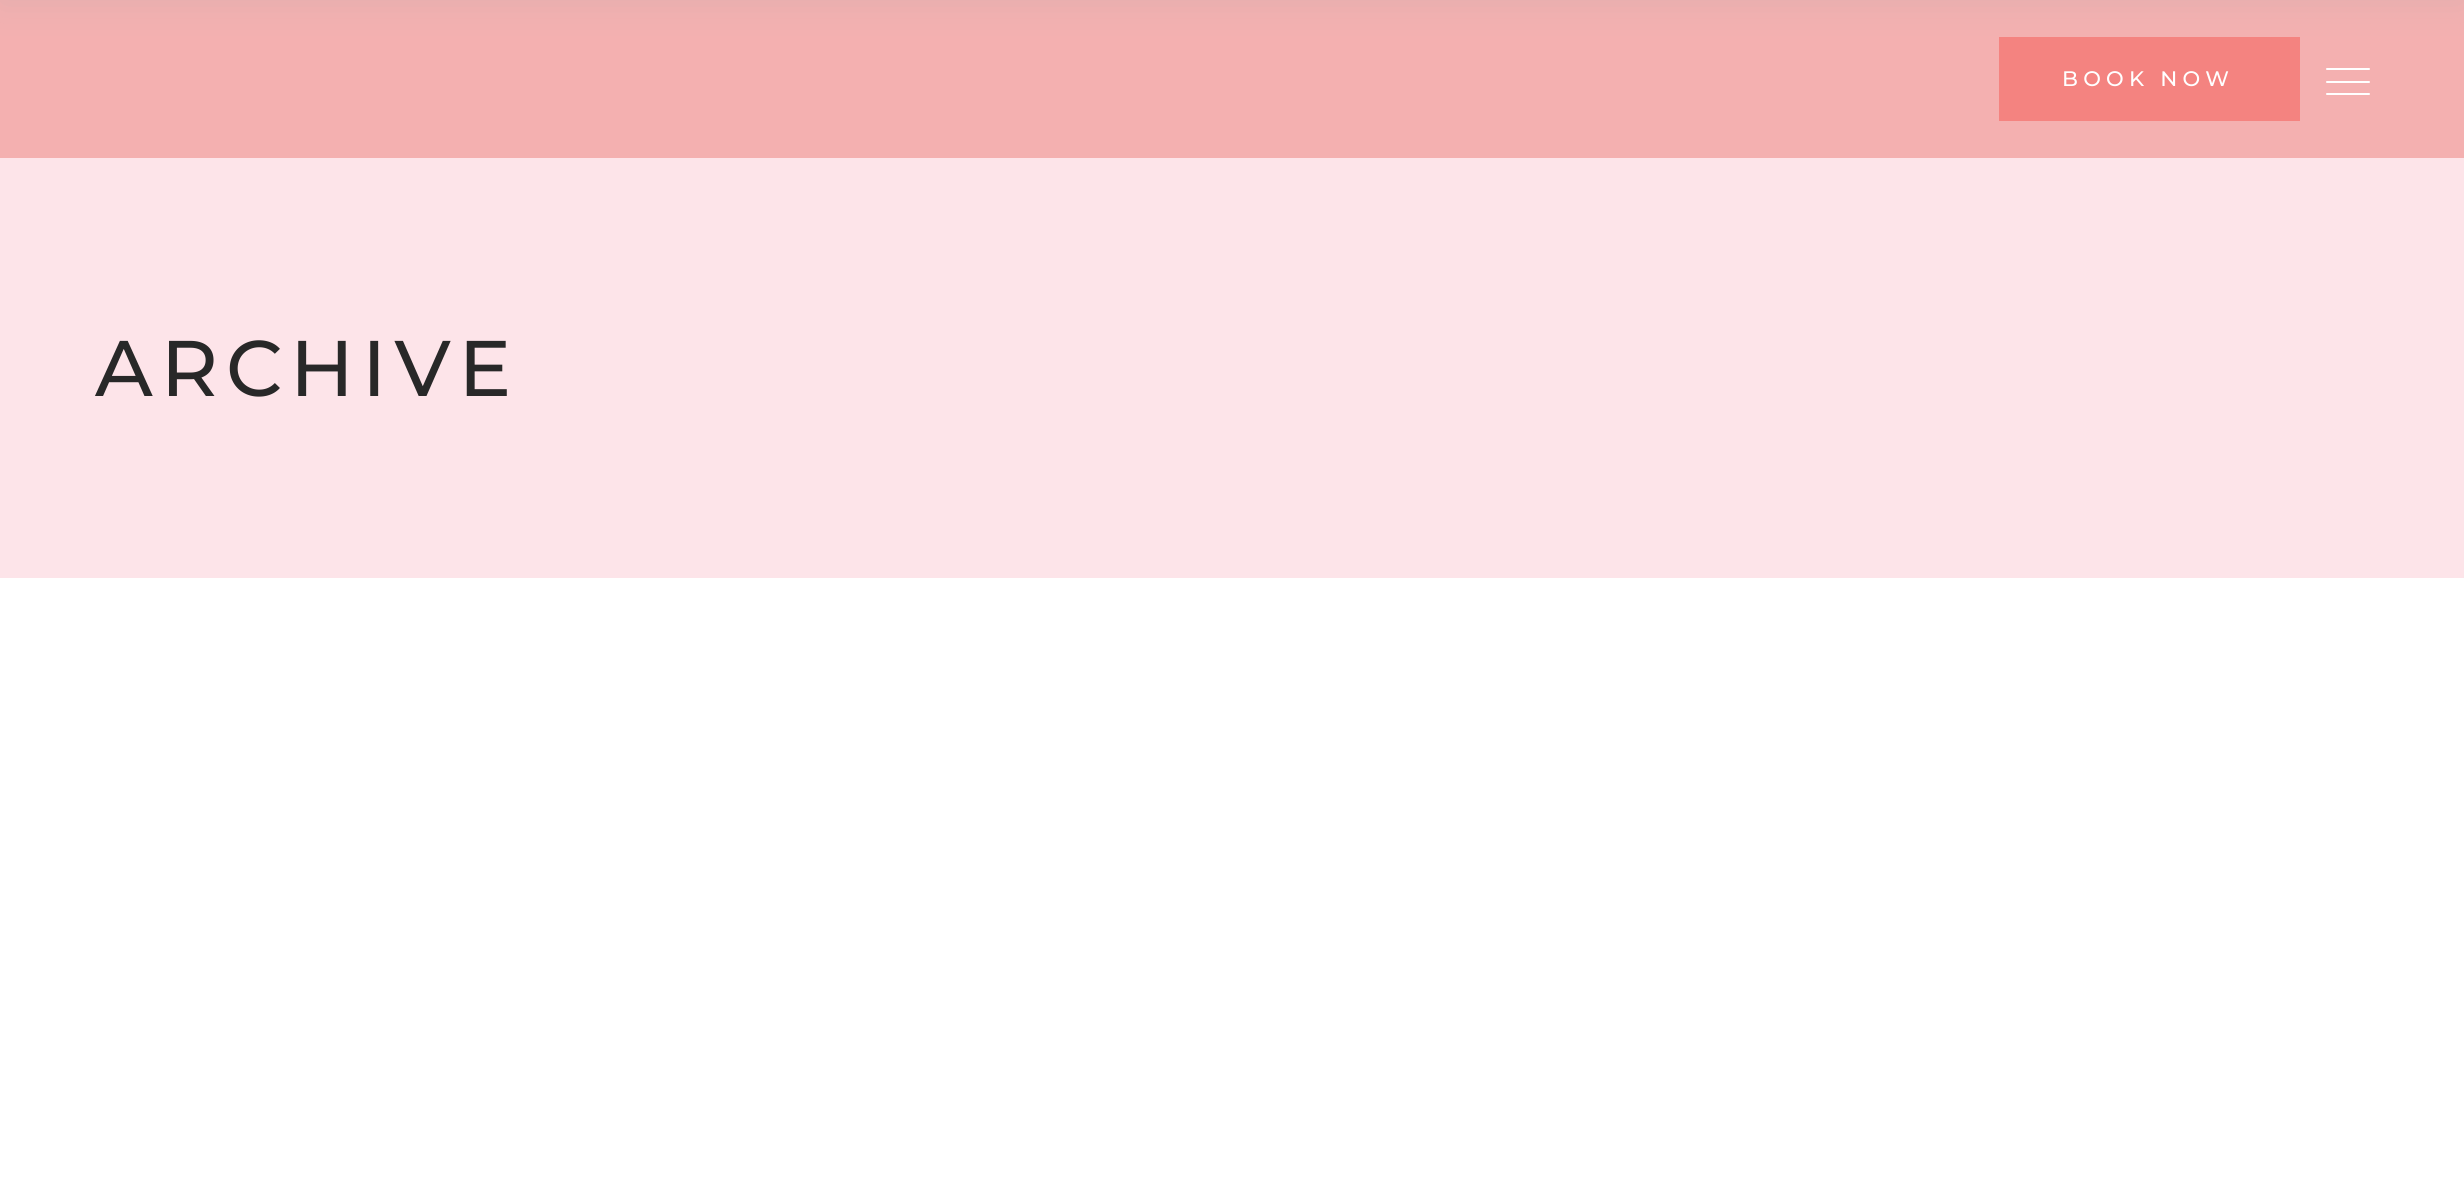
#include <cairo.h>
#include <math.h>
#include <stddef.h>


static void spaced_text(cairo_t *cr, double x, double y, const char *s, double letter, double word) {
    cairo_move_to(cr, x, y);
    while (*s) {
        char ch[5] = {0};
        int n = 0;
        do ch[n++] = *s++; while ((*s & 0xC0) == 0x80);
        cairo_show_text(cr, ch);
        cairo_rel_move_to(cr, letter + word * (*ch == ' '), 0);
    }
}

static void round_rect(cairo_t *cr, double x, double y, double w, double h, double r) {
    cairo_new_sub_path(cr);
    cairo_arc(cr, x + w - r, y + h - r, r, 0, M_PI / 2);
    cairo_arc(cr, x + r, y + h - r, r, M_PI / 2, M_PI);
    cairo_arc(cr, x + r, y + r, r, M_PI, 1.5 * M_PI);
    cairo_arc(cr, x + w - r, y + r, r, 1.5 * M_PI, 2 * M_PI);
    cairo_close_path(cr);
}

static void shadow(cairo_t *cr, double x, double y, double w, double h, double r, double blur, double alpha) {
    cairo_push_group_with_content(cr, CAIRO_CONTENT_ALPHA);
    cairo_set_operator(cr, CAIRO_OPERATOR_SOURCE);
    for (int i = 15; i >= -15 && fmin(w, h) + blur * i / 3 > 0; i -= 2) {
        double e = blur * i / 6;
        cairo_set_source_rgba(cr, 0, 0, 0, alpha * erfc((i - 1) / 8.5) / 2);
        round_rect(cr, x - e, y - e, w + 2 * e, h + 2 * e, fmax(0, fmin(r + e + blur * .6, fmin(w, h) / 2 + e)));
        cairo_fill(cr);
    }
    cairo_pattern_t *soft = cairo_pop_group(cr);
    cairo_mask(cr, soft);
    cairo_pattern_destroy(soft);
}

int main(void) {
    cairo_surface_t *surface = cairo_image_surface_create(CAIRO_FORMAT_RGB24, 2464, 1204);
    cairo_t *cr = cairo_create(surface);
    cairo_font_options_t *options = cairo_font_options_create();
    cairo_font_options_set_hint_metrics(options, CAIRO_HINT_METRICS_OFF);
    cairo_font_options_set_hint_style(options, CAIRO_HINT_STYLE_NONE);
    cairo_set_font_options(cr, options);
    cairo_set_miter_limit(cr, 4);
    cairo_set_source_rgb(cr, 1, 1, 1);
    cairo_paint(cr);
    cairo_set_source_rgb(cr, 0.957, 0.69, 0.69);
    cairo_rectangle(cr, 0, 0, 2464, 158);
    cairo_fill(cr);
    cairo_set_source_rgb(cr, 0.957, 0.514, 0.502);
    cairo_rectangle(cr, 1999, 37, 301, 84);
    cairo_fill(cr);
    cairo_set_source_rgb(cr, 0.686, 0.667, 0.663);
    shadow(cr, 0, -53, 2464, 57, 0, 17.5, 0.25);
    cairo_select_font_face(cr, "Montserrat Medium", CAIRO_FONT_SLANT_NORMAL, CAIRO_FONT_WEIGHT_NORMAL);
    cairo_set_font_size(cr, 21);
    cairo_set_source_rgb(cr, 1, 1, 1);
    spaced_text(cr, 2062, 86, "BOOK NOW", 5.25, 0);
    round_rect(cr, 2326, 68, 44, 2, 1);
    cairo_fill(cr);
    round_rect(cr, 2326, 81, 44, 2, 1);
    cairo_fill(cr);
    round_rect(cr, 2326, 93, 44, 2, 1);
    cairo_fill(cr);
    cairo_set_source_rgb(cr, 0.992, 0.894, 0.914);
    cairo_rectangle(cr, 0, 158, 2464, 420);
    cairo_fill(cr);
    cairo_set_font_size(cr, 78.75);
    cairo_set_source_rgb(cr, 0.157, 0.157, 0.157);
    spaced_text(cr, 95, 396, "ARCHIVE", 8, 0);
    cairo_surface_write_to_png(surface, "page.png");
    cairo_font_options_destroy(options);
    cairo_destroy(cr);
    cairo_surface_destroy(surface);
    return 0;
}
